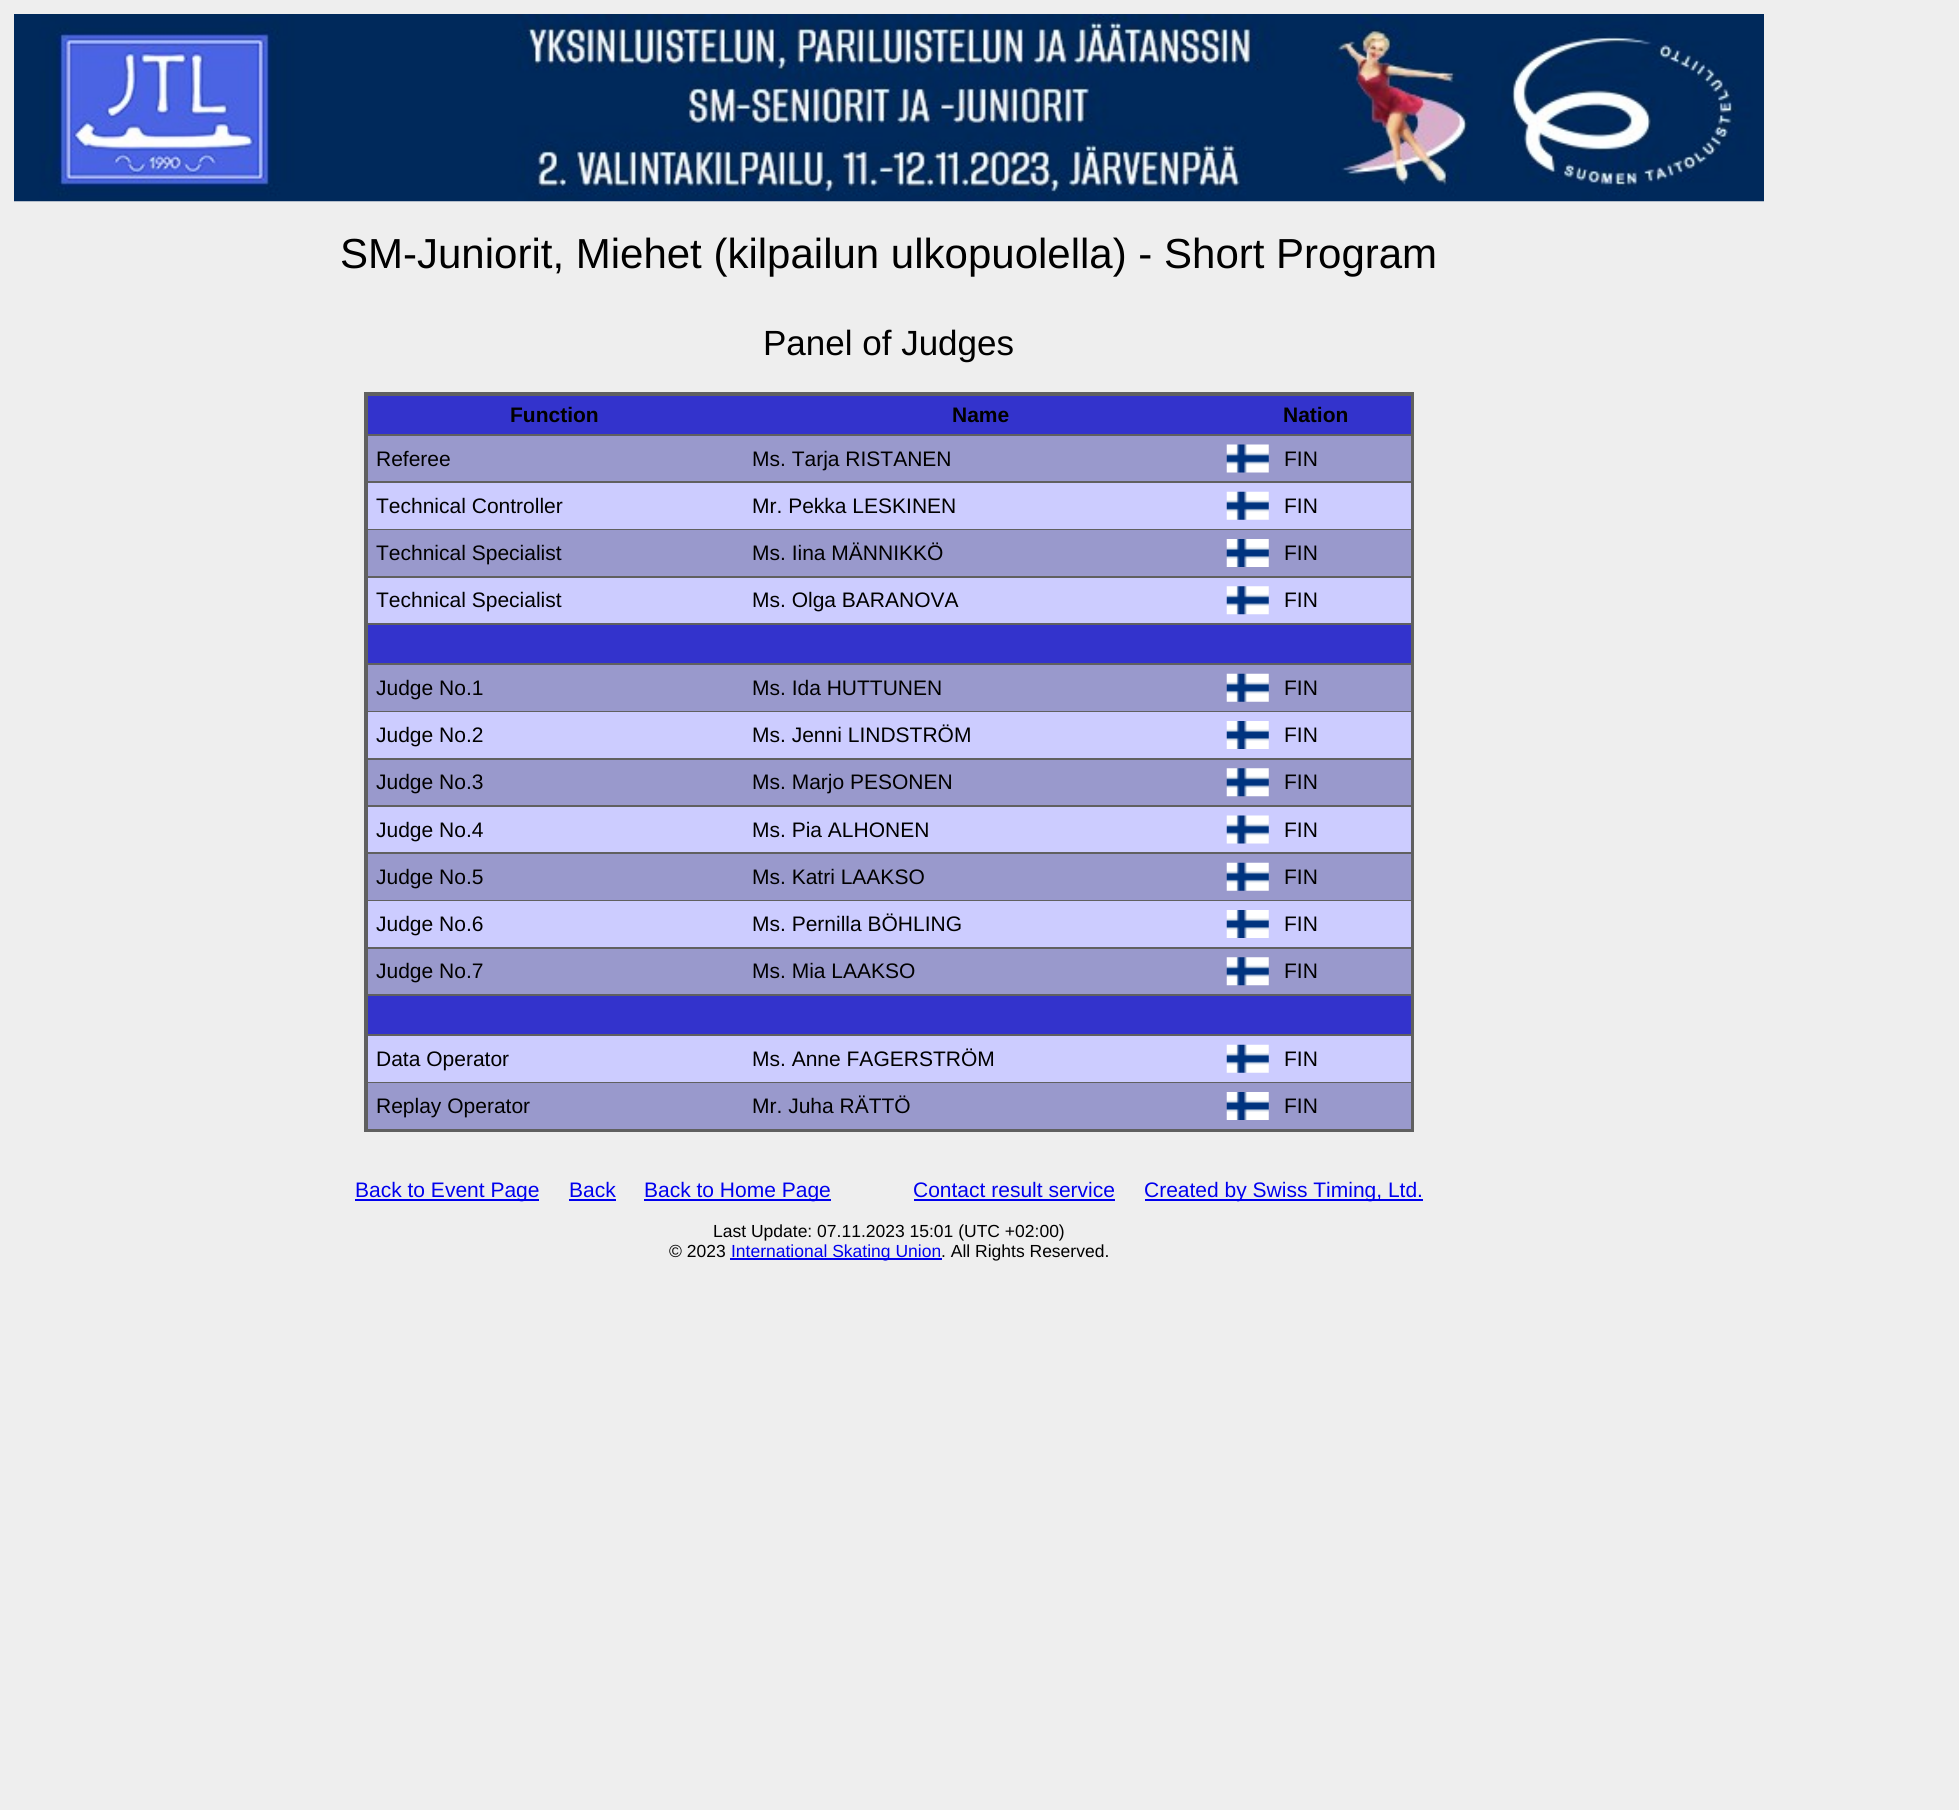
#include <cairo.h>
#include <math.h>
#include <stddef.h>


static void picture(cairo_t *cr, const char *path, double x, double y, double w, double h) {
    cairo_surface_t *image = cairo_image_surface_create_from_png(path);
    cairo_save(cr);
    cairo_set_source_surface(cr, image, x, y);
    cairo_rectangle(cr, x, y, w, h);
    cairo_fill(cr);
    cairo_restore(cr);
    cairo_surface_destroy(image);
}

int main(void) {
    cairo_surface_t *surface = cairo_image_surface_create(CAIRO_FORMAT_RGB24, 1959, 1810);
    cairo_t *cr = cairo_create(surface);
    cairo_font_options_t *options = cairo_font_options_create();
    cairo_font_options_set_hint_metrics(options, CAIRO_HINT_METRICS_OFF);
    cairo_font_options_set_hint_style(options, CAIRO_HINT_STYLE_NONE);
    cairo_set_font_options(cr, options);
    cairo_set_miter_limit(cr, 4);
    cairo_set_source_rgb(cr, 0.933, 0.933, 0.933);
    cairo_paint(cr);
    picture(cr, "img1.png", 14, 14, 1750, 188);
    cairo_select_font_face(cr, "Liberation Sans", CAIRO_FONT_SLANT_NORMAL, CAIRO_FONT_WEIGHT_NORMAL);
    cairo_set_font_size(cr, 42);
    cairo_set_source_rgb(cr, 0, 0, 0);
    cairo_move_to(cr, 340, 268);
    cairo_show_text(cr, "SM-Juniorit, Miehet (kilpailun ulkopuolella) - Short Program");
    cairo_set_font_size(cr, 35);
    cairo_move_to(cr, 763, 355);
    cairo_show_text(cr, "Panel of Judges");
    cairo_set_source_rgb(cr, 0.376, 0.376, 0.376);
    cairo_rectangle(cr, 364, 392, 1050, 740);
    cairo_fill(cr);
    cairo_set_source_rgb(cr, 0.2, 0.2, 0.8);
    cairo_rectangle(cr, 368, 396, 1043, 38);
    cairo_fill(cr);
    cairo_select_font_face(cr, "Liberation Sans", CAIRO_FONT_SLANT_NORMAL, CAIRO_FONT_WEIGHT_BOLD);
    cairo_set_font_size(cr, 21);
    cairo_set_source_rgb(cr, 0, 0, 0);
    cairo_move_to(cr, 510, 422);
    cairo_show_text(cr, "Function");
    cairo_move_to(cr, 952, 422);
    cairo_show_text(cr, "Name");
    cairo_move_to(cr, 1283, 422);
    cairo_show_text(cr, "Nation");
    cairo_set_source_rgb(cr, 0.6, 0.6, 0.8);
    cairo_rectangle(cr, 368, 436, 1043, 45);
    cairo_fill(cr);
    cairo_select_font_face(cr, "Liberation Sans", CAIRO_FONT_SLANT_NORMAL, CAIRO_FONT_WEIGHT_NORMAL);
    cairo_set_source_rgb(cr, 0, 0, 0);
    cairo_move_to(cr, 376, 466);
    cairo_show_text(cr, "Referee");
    cairo_move_to(cr, 752, 466);
    cairo_show_text(cr, "Ms. Tarja RISTANEN");
    picture(cr, "img2.png", 1226, 444, 43, 29);
    cairo_move_to(cr, 1284, 466);
    cairo_show_text(cr, "FIN");
    cairo_set_source_rgb(cr, 0.8, 0.8, 1);
    cairo_rectangle(cr, 368, 483, 1043, 46);
    cairo_fill(cr);
    cairo_set_source_rgb(cr, 0, 0, 0);
    cairo_move_to(cr, 376, 513);
    cairo_show_text(cr, "Technical Controller");
    cairo_move_to(cr, 752, 513);
    cairo_show_text(cr, "Mr. Pekka LESKINEN");
    picture(cr, "img3.png", 1226, 491, 43, 29);
    cairo_move_to(cr, 1284, 513);
    cairo_show_text(cr, "FIN");
    cairo_set_source_rgb(cr, 0.6, 0.6, 0.8);
    cairo_rectangle(cr, 368, 530, 1043, 46);
    cairo_fill(cr);
    cairo_set_source_rgb(cr, 0, 0, 0);
    cairo_move_to(cr, 376, 560);
    cairo_show_text(cr, "Technical Specialist");
    cairo_move_to(cr, 752, 560);
    cairo_show_text(cr, "Ms. Iina MÄNNIKKÖ");
    picture(cr, "img4.png", 1226, 539, 43, 28);
    cairo_move_to(cr, 1284, 560);
    cairo_show_text(cr, "FIN");
    cairo_set_source_rgb(cr, 0.8, 0.8, 1);
    cairo_rectangle(cr, 368, 578, 1043, 45);
    cairo_fill(cr);
    cairo_set_source_rgb(cr, 0, 0, 0);
    cairo_move_to(cr, 376, 607);
    cairo_show_text(cr, "Technical Specialist");
    cairo_move_to(cr, 752, 607);
    cairo_show_text(cr, "Ms. Olga BARANOVA");
    picture(cr, "img5.png", 1226, 586, 43, 29);
    cairo_move_to(cr, 1284, 607);
    cairo_show_text(cr, "FIN");
    cairo_set_source_rgb(cr, 0.2, 0.2, 0.8);
    cairo_rectangle(cr, 368, 625, 1043, 38);
    cairo_fill(cr);
    cairo_set_source_rgb(cr, 0.6, 0.6, 0.8);
    cairo_rectangle(cr, 368, 665, 1043, 46);
    cairo_fill(cr);
    cairo_set_source_rgb(cr, 0, 0, 0);
    cairo_move_to(cr, 376, 695);
    cairo_show_text(cr, "Judge No.1");
    cairo_move_to(cr, 752, 695);
    cairo_show_text(cr, "Ms. Ida HUTTUNEN");
    picture(cr, "img6.png", 1226, 673, 43, 29);
    cairo_move_to(cr, 1284, 695);
    cairo_show_text(cr, "FIN");
    cairo_set_source_rgb(cr, 0.8, 0.8, 1);
    cairo_rectangle(cr, 368, 712, 1043, 46);
    cairo_fill(cr);
    cairo_set_source_rgb(cr, 0, 0, 0);
    cairo_move_to(cr, 376, 742);
    cairo_show_text(cr, "Judge No.2");
    cairo_move_to(cr, 752, 742);
    cairo_show_text(cr, "Ms. Jenni LINDSTRÖM");
    picture(cr, "img7.png", 1226, 721, 43, 28);
    cairo_move_to(cr, 1284, 742);
    cairo_show_text(cr, "FIN");
    cairo_set_source_rgb(cr, 0.6, 0.6, 0.8);
    cairo_rectangle(cr, 368, 760, 1043, 45);
    cairo_fill(cr);
    cairo_set_source_rgb(cr, 0, 0, 0);
    cairo_move_to(cr, 376, 789);
    cairo_show_text(cr, "Judge No.3");
    cairo_move_to(cr, 752, 789);
    cairo_show_text(cr, "Ms. Marjo PESONEN");
    picture(cr, "img8.png", 1226, 768, 43, 29);
    cairo_move_to(cr, 1284, 789);
    cairo_show_text(cr, "FIN");
    cairo_set_source_rgb(cr, 0.8, 0.8, 1);
    cairo_rectangle(cr, 368, 807, 1043, 45);
    cairo_fill(cr);
    cairo_set_source_rgb(cr, 0, 0, 0);
    cairo_move_to(cr, 376, 837);
    cairo_show_text(cr, "Judge No.4");
    cairo_move_to(cr, 752, 837);
    cairo_show_text(cr, "Ms. Pia ALHONEN");
    picture(cr, "img9.png", 1226, 815, 43, 29);
    cairo_move_to(cr, 1284, 837);
    cairo_show_text(cr, "FIN");
    cairo_set_source_rgb(cr, 0.6, 0.6, 0.8);
    cairo_rectangle(cr, 368, 854, 1043, 46);
    cairo_fill(cr);
    cairo_set_source_rgb(cr, 0, 0, 0);
    cairo_move_to(cr, 376, 884);
    cairo_show_text(cr, "Judge No.5");
    cairo_move_to(cr, 752, 884);
    cairo_show_text(cr, "Ms. Katri LAAKSO");
    picture(cr, "img6.png", 1226, 862, 43, 29);
    cairo_move_to(cr, 1284, 884);
    cairo_show_text(cr, "FIN");
    cairo_set_source_rgb(cr, 0.8, 0.8, 1);
    cairo_rectangle(cr, 368, 901, 1043, 46);
    cairo_fill(cr);
    cairo_set_source_rgb(cr, 0, 0, 0);
    cairo_move_to(cr, 376, 931);
    cairo_show_text(cr, "Judge No.6");
    cairo_move_to(cr, 752, 931);
    cairo_show_text(cr, "Ms. Pernilla BÖHLING");
    picture(cr, "img7.png", 1226, 910, 43, 28);
    cairo_move_to(cr, 1284, 931);
    cairo_show_text(cr, "FIN");
    cairo_set_source_rgb(cr, 0.6, 0.6, 0.8);
    cairo_rectangle(cr, 368, 949, 1043, 45);
    cairo_fill(cr);
    cairo_set_source_rgb(cr, 0, 0, 0);
    cairo_move_to(cr, 376, 978);
    cairo_show_text(cr, "Judge No.7");
    cairo_move_to(cr, 752, 978);
    cairo_show_text(cr, "Ms. Mia LAAKSO");
    picture(cr, "img8.png", 1226, 957, 43, 29);
    cairo_move_to(cr, 1284, 978);
    cairo_show_text(cr, "FIN");
    cairo_set_source_rgb(cr, 0.2, 0.2, 0.8);
    cairo_rectangle(cr, 368, 996, 1043, 38);
    cairo_fill(cr);
    cairo_set_source_rgb(cr, 0.8, 0.8, 1);
    cairo_rectangle(cr, 368, 1036, 1043, 46);
    cairo_fill(cr);
    cairo_set_source_rgb(cr, 0, 0, 0);
    cairo_move_to(cr, 376, 1066);
    cairo_show_text(cr, "Data Operator");
    cairo_move_to(cr, 752, 1066);
    cairo_show_text(cr, "Ms. Anne FAGERSTRÖM");
    picture(cr, "img3.png", 1226, 1044, 43, 29);
    cairo_move_to(cr, 1284, 1066);
    cairo_show_text(cr, "FIN");
    cairo_set_source_rgb(cr, 0.6, 0.6, 0.8);
    cairo_rectangle(cr, 368, 1083, 1043, 46);
    cairo_fill(cr);
    cairo_set_source_rgb(cr, 0, 0, 0);
    cairo_move_to(cr, 376, 1113);
    cairo_show_text(cr, "Replay Operator");
    cairo_move_to(cr, 752, 1113);
    cairo_show_text(cr, "Mr. Juha RÄTTÖ");
    picture(cr, "img4.png", 1226, 1092, 43, 28);
    cairo_move_to(cr, 1284, 1113);
    cairo_show_text(cr, "FIN");
    cairo_set_source_rgb(cr, 0, 0, 0.933);
    cairo_rectangle(cr, 355, 1199, 184, 2);
    cairo_fill(cr);
    cairo_move_to(cr, 355, 1197);
    cairo_show_text(cr, "Back to Event Page");
    cairo_move_to(cr, 569, 1197);
    cairo_show_text(cr, "Back");
    cairo_rectangle(cr, 569, 1199, 47, 2);
    cairo_fill(cr);
    cairo_rectangle(cr, 644, 1199, 187, 2);
    cairo_fill(cr);
    cairo_move_to(cr, 644, 1197);
    cairo_show_text(cr, "Back to Home Page");
    cairo_move_to(cr, 913, 1197);
    cairo_show_text(cr, "Contact result service");
    cairo_rectangle(cr, 914, 1199, 201, 2);
    cairo_fill(cr);
    cairo_rectangle(cr, 1145, 1199, 278, 2);
    cairo_fill(cr);
    cairo_move_to(cr, 1144, 1197);
    cairo_show_text(cr, "Created by Swiss Timing, Ltd.");
    cairo_set_font_size(cr, 17.5);
    cairo_set_source_rgb(cr, 0, 0, 0);
    cairo_move_to(cr, 713, 1237);
    cairo_show_text(cr, "Last Update: 07.11.2023 15:01 (UTC +02:00)");
    cairo_move_to(cr, 669, 1257);
    cairo_show_text(cr, "© 2023");
    cairo_set_source_rgb(cr, 0, 0, 0.933);
    cairo_rectangle(cr, 730, 1258, 212, 2);
    cairo_fill(cr);
    cairo_move_to(cr, 731, 1257);
    cairo_show_text(cr, "International Skating Union");
    cairo_set_source_rgb(cr, 0, 0, 0);
    cairo_move_to(cr, 941, 1257);
    cairo_show_text(cr, ". All Rights Reserved.");
    cairo_surface_write_to_png(surface, "page.png");
    cairo_font_options_destroy(options);
    cairo_destroy(cr);
    cairo_surface_destroy(surface);
    return 0;
}
